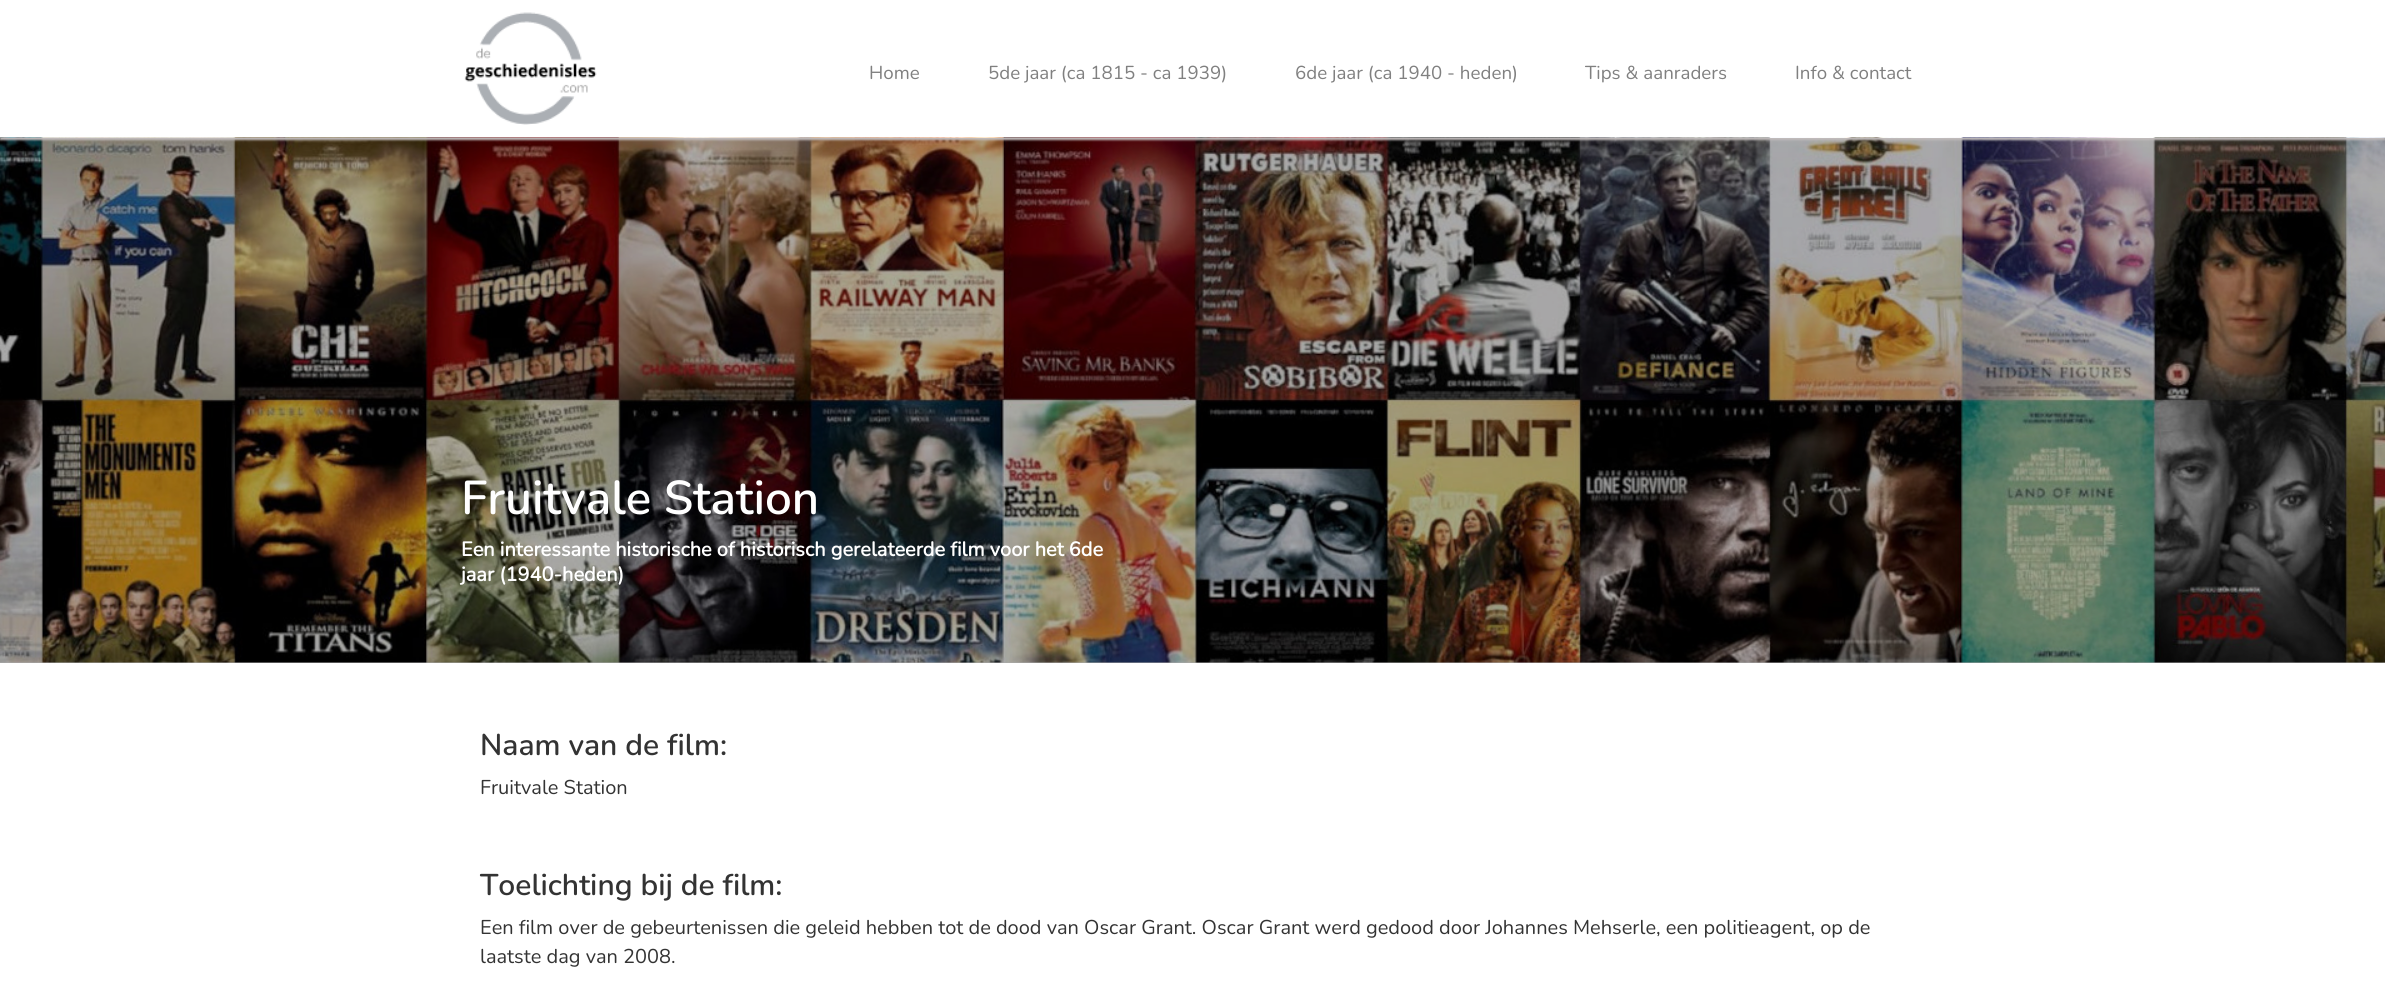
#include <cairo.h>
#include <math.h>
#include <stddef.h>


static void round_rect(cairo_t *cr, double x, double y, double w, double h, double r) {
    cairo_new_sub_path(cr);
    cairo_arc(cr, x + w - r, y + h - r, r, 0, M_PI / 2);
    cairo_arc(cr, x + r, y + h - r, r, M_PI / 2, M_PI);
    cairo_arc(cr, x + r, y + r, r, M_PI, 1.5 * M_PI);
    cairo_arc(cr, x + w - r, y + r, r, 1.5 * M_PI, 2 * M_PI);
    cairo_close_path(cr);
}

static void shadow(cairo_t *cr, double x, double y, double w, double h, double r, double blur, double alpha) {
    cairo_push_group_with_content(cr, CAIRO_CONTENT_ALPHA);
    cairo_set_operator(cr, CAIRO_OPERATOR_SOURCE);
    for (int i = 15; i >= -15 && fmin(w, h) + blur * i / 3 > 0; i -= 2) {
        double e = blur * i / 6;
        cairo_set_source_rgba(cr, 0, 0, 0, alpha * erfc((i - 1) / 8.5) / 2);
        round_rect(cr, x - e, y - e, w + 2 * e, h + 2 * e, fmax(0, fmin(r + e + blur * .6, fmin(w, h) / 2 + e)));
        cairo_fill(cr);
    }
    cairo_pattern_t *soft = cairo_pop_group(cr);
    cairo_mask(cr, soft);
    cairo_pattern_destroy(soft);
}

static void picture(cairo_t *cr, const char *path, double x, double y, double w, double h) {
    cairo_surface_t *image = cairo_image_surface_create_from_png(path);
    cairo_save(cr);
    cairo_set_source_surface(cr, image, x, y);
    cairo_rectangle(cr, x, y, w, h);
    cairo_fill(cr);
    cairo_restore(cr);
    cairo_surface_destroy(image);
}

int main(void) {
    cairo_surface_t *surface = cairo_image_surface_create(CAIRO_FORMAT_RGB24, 2385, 999);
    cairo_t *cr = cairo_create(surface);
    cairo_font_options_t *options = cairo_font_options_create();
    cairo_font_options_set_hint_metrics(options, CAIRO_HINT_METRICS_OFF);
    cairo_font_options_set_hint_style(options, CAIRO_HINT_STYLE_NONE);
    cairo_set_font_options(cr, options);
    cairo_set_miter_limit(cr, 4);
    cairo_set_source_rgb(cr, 1, 1, 1);
    cairo_paint(cr);
    cairo_set_source_rgb(cr, 0.671, 0.671, 0.671);
    cairo_rectangle(cr, 0, 662, 2385, 1);
    cairo_fill(cr);
    picture(cr, "img2.png", 0, 137, 2385, 526);
    cairo_save(cr);
    cairo_set_fill_rule(cr, CAIRO_FILL_RULE_EVEN_ODD);
    cairo_new_path(cr);
    cairo_move_to(cr, 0, 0);
    cairo_line_to(cr, 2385, 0);
    cairo_line_to(cr, 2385, 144);
    cairo_line_to(cr, 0, 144);
    cairo_close_path(cr);
    cairo_move_to(cr, 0, 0);
    cairo_line_to(cr, 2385, 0);
    cairo_line_to(cr, 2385, 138);
    cairo_line_to(cr, 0, 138);
    cairo_close_path(cr);
    cairo_clip(cr);
    cairo_set_source_rgb(cr, 0.757, 0.733, 0.733);
    shadow(cr, 0, 3, 2385, 137, 0, 1, 1);
    cairo_restore(cr);
    picture(cr, "img1.png", 464, 12, 133, 113);
    cairo_select_font_face(cr, "Nunito", CAIRO_FONT_SLANT_NORMAL, CAIRO_FONT_WEIGHT_NORMAL);
    cairo_set_font_size(cr, 18.75);
    cairo_set_source_rgb(cr, 0.502, 0.502, 0.502);
    cairo_move_to(cr, 869, 79);
    cairo_show_text(cr, "Home");
    cairo_move_to(cr, 988, 79);
    cairo_show_text(cr, "5de jaar (ca 1815 - ca 1939)");
    cairo_move_to(cr, 1295, 79);
    cairo_show_text(cr, "6de jaar (ca 1940 - heden)");
    cairo_move_to(cr, 1585, 79);
    cairo_show_text(cr, "Tips & aanraders");
    cairo_move_to(cr, 1795, 79);
    cairo_show_text(cr, "Info & contact");
    cairo_select_font_face(cr, "Nunito SemiBold", CAIRO_FONT_SLANT_NORMAL, CAIRO_FONT_WEIGHT_NORMAL);
    cairo_set_font_size(cr, 47.5);
    cairo_set_source_rgb(cr, 1, 1, 1);
    cairo_move_to(cr, 461, 514);
    cairo_show_text(cr, "Fruitvale Station");
    cairo_select_font_face(cr, "Nunito", CAIRO_FONT_SLANT_NORMAL, CAIRO_FONT_WEIGHT_BOLD);
    cairo_set_font_size(cr, 20);
    cairo_move_to(cr, 461, 556);
    cairo_show_text(cr, "Een interessante historische of historisch gerelateerde film voor het 6de");
    cairo_move_to(cr, 461, 581);
    cairo_show_text(cr, "jaar (1940-heden)");
    cairo_select_font_face(cr, "Nunito SemiBold", CAIRO_FONT_SLANT_NORMAL, CAIRO_FONT_WEIGHT_NORMAL);
    cairo_set_font_size(cr, 30);
    cairo_set_source_rgb(cr, 0.2, 0.2, 0.2);
    cairo_move_to(cr, 480, 755);
    cairo_show_text(cr, "Naam van de film:");
    cairo_select_font_face(cr, "Nunito", CAIRO_FONT_SLANT_NORMAL, CAIRO_FONT_WEIGHT_NORMAL);
    cairo_set_font_size(cr, 20);
    cairo_move_to(cr, 480, 794);
    cairo_show_text(cr, "Fruitvale Station");
    cairo_select_font_face(cr, "Nunito SemiBold", CAIRO_FONT_SLANT_NORMAL, CAIRO_FONT_WEIGHT_NORMAL);
    cairo_set_font_size(cr, 30);
    cairo_move_to(cr, 480, 895);
    cairo_show_text(cr, "Toelichting bij de film:");
    cairo_select_font_face(cr, "Nunito", CAIRO_FONT_SLANT_NORMAL, CAIRO_FONT_WEIGHT_NORMAL);
    cairo_set_font_size(cr, 20);
    cairo_move_to(cr, 480, 934);
    cairo_show_text(cr, "Een film over de gebeurtenissen die geleid hebben tot de dood van Oscar Grant. Oscar Grant werd gedood door Johannes Mehserle, een politieagent, op de");
    cairo_move_to(cr, 480, 963);
    cairo_show_text(cr, "laatste dag van 2008.");
    cairo_surface_write_to_png(surface, "page.png");
    cairo_font_options_destroy(options);
    cairo_destroy(cr);
    cairo_surface_destroy(surface);
    return 0;
}
